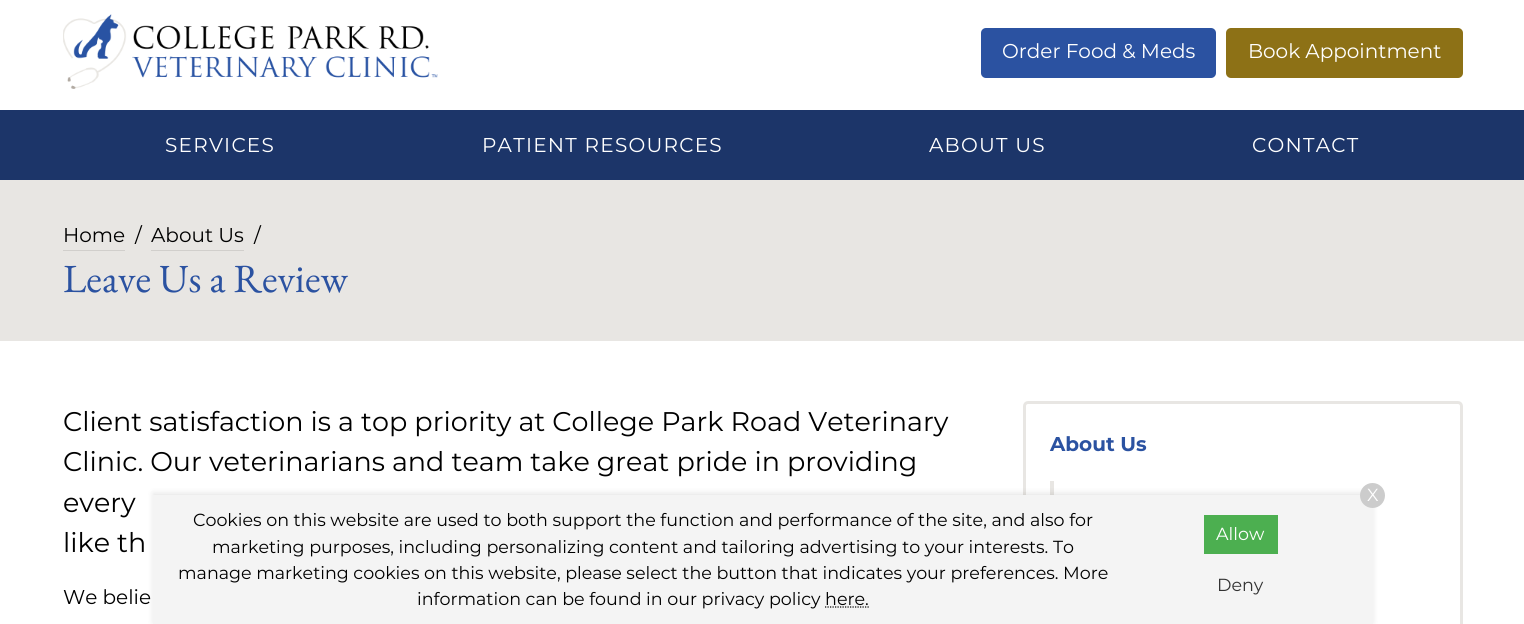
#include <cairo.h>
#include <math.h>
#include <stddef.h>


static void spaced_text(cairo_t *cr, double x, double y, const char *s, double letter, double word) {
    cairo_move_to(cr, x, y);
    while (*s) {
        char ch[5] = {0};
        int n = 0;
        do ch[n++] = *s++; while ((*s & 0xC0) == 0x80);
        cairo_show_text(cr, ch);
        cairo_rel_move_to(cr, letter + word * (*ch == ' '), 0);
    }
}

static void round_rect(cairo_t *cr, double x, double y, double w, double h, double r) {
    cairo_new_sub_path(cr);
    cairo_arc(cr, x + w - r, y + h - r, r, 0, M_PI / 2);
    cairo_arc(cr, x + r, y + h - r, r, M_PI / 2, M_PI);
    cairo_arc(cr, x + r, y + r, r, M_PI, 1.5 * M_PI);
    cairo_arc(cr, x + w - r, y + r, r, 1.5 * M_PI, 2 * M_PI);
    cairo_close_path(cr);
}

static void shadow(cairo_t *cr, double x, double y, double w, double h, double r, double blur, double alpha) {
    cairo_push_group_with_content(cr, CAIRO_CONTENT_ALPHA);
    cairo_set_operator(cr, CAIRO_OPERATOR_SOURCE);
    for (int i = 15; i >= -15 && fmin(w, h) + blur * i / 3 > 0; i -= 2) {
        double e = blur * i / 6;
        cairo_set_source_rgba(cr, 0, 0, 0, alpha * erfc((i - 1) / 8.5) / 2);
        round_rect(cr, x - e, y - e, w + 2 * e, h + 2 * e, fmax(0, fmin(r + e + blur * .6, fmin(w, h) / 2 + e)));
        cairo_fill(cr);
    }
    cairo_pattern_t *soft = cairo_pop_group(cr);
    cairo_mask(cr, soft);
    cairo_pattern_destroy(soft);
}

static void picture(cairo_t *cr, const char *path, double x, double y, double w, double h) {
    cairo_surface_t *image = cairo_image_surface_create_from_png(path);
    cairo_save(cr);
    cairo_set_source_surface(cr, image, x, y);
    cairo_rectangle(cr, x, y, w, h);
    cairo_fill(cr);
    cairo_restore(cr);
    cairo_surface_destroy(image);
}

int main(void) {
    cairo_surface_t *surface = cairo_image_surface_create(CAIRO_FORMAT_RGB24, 1524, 624);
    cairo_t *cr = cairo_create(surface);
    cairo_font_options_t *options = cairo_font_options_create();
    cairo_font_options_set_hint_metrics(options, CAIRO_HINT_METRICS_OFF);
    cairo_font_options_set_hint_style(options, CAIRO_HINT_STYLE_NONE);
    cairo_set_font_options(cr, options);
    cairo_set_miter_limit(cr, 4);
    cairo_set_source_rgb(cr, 1, 1, 1);
    cairo_paint(cr);
    picture(cr, "img1.png", 63, 14, 375, 75);
    cairo_set_source_rgb(cr, 0.169, 0.322, 0.631);
    round_rect(cr, 981, 28, 235, 50, 5);
    cairo_fill(cr);
    cairo_select_font_face(cr, "Montserrat", CAIRO_FONT_SLANT_NORMAL, CAIRO_FONT_WEIGHT_NORMAL);
    cairo_set_font_size(cr, 20);
    cairo_set_source_rgb(cr, 1, 1, 1);
    cairo_move_to(cr, 1002, 58);
    cairo_show_text(cr, "Order Food & Meds");
    cairo_set_source_rgb(cr, 0.553, 0.443, 0.086);
    round_rect(cr, 1226, 28, 237, 50, 5);
    cairo_fill(cr);
    cairo_set_source_rgb(cr, 1, 1, 1);
    cairo_move_to(cr, 1248, 58);
    cairo_show_text(cr, "Book Appointment");
    cairo_set_source_rgb(cr, 0.11, 0.208, 0.412);
    cairo_rectangle(cr, 0, 110, 1524, 70);
    cairo_fill(cr);
    cairo_set_source_rgb(cr, 1, 1, 1);
    spaced_text(cr, 165, 152, "SERVICES", 1.25, 0);
    spaced_text(cr, 482, 152, "PATIENT RESOURCES", 1.25, 0);
    spaced_text(cr, 929, 152, "ABOUT US", 1.25, 0);
    spaced_text(cr, 1252, 152, "CONTACT", 1.25, 0);
    cairo_set_source_rgb(cr, 0.91, 0.902, 0.89);
    cairo_rectangle(cr, 0, 180, 1524, 161);
    cairo_fill(cr);
    cairo_set_source_rgb(cr, 0.82, 0.812, 0.8);
    cairo_rectangle(cr, 63, 250, 62, 1);
    cairo_fill(cr);
    cairo_set_source_rgb(cr, 0, 0, 0);
    cairo_move_to(cr, 63, 242);
    cairo_show_text(cr, "Home");
    cairo_move_to(cr, 135, 242);
    cairo_show_text(cr, "/");
    cairo_set_source_rgb(cr, 0.82, 0.812, 0.8);
    cairo_rectangle(cr, 151, 250, 93, 1);
    cairo_fill(cr);
    cairo_set_source_rgb(cr, 0, 0, 0);
    cairo_move_to(cr, 151, 242);
    cairo_show_text(cr, "About Us");
    cairo_move_to(cr, 254, 242);
    cairo_show_text(cr, "/");
    cairo_select_font_face(cr, "EB Garamond", CAIRO_FONT_SLANT_NORMAL, CAIRO_FONT_WEIGHT_NORMAL);
    cairo_set_font_size(cr, 40);
    cairo_set_source_rgb(cr, 0.169, 0.322, 0.631);
    cairo_move_to(cr, 63, 292);
    cairo_show_text(cr, "Leave Us a Review");
    cairo_select_font_face(cr, "Montserrat", CAIRO_FONT_SLANT_NORMAL, CAIRO_FONT_WEIGHT_NORMAL);
    cairo_set_font_size(cr, 27);
    cairo_set_source_rgb(cr, 0, 0, 0);
    cairo_move_to(cr, 63, 431);
    cairo_show_text(cr, "Client satisfaction is a top priority at College Park Road Veterinary");
    cairo_move_to(cr, 63, 471);
    cairo_show_text(cr, "Clinic. Our veterinarians and team take great pride in providing");
    cairo_move_to(cr, 63, 512);
    cairo_show_text(cr, "every");
    cairo_move_to(cr, 63, 552);
    cairo_show_text(cr, "like th");
    cairo_set_font_size(cr, 20);
    cairo_move_to(cr, 63, 604);
    cairo_show_text(cr, "We belie");
    round_rect(cr, 1024.5, 402.5, 437, 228, 3.5);
    cairo_set_source_rgb(cr, 0.91, 0.902, 0.89);
    cairo_set_line_width(cr, 3);
    cairo_stroke(cr);
    cairo_select_font_face(cr, "Montserrat", CAIRO_FONT_SLANT_NORMAL, CAIRO_FONT_WEIGHT_BOLD);
    cairo_set_source_rgb(cr, 0.169, 0.322, 0.631);
    cairo_move_to(cr, 1050, 451);
    cairo_show_text(cr, "About Us");
    cairo_set_source_rgb(cr, 0.91, 0.902, 0.89);
    cairo_rectangle(cr, 1050, 481, 4, 14);
    cairo_fill(cr);
    cairo_set_source_rgb(cr, 0, 0, 0);
    shadow(cr, 153, 493, 1220, 130, 0, 3, 0.1);
    cairo_set_source_rgb(cr, 0.957, 0.957, 0.957);
    cairo_rectangle(cr, 153, 495, 1220, 129);
    cairo_fill(cr);
    cairo_set_source_rgb(cr, 0.8, 0.8, 0.8);
    cairo_arc(cr, 1372.5, 495.5, 12.5, 0, 2 * M_PI);
    cairo_fill(cr);
    cairo_select_font_face(cr, "Montserrat", CAIRO_FONT_SLANT_NORMAL, CAIRO_FONT_WEIGHT_NORMAL);
    cairo_set_font_size(cr, 17.5);
    cairo_set_source_rgb(cr, 1, 1, 1);
    cairo_move_to(cr, 1367, 501);
    cairo_show_text(cr, "X");
    cairo_set_source_rgb(cr, 0, 0, 0);
    cairo_move_to(cr, 193, 526);
    cairo_show_text(cr, "Cookies on this website are used to both support the function and performance of the site, and also for");
    cairo_move_to(cr, 212, 553);
    cairo_show_text(cr, "marketing purposes, including personalizing content and tailoring advertising to your interests. To");
    cairo_move_to(cr, 178, 579);
    cairo_show_text(cr, "manage marketing cookies on this website, please select the button that indicates your preferences. More");
    cairo_move_to(cr, 417, 605);
    cairo_show_text(cr, "information can be found in our privacy policy here.");
    cairo_new_path(cr);
    cairo_move_to(cr, 825, 607);
    cairo_line_to(cr, 869, 607);
    cairo_set_line_width(cr, 1.2);
    cairo_set_dash(cr, (double[]){1.25, 1.25}, 2, 0);
    cairo_stroke(cr);
    cairo_set_source_rgb(cr, 0.298, 0.686, 0.314);
    cairo_rectangle(cr, 1204, 515, 74, 39);
    cairo_fill(cr);
    cairo_set_source_rgb(cr, 1, 1, 1);
    cairo_move_to(cr, 1216, 540);
    cairo_show_text(cr, "Allow");
    cairo_set_source_rgb(cr, 0.2, 0.2, 0.2);
    cairo_move_to(cr, 1217, 591);
    cairo_show_text(cr, "Deny");
    cairo_surface_write_to_png(surface, "page.png");
    cairo_font_options_destroy(options);
    cairo_destroy(cr);
    cairo_surface_destroy(surface);
    return 0;
}
